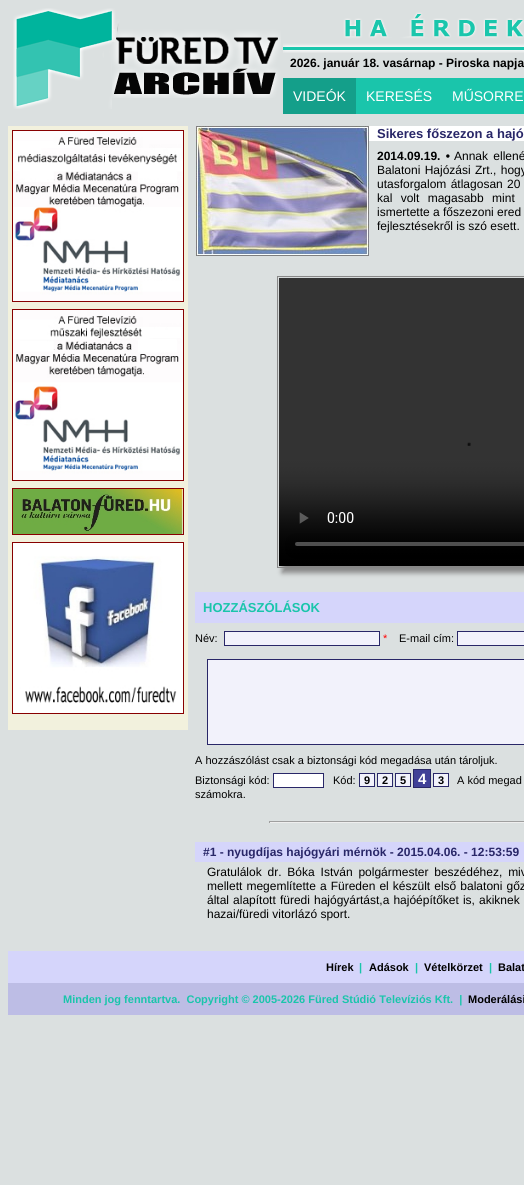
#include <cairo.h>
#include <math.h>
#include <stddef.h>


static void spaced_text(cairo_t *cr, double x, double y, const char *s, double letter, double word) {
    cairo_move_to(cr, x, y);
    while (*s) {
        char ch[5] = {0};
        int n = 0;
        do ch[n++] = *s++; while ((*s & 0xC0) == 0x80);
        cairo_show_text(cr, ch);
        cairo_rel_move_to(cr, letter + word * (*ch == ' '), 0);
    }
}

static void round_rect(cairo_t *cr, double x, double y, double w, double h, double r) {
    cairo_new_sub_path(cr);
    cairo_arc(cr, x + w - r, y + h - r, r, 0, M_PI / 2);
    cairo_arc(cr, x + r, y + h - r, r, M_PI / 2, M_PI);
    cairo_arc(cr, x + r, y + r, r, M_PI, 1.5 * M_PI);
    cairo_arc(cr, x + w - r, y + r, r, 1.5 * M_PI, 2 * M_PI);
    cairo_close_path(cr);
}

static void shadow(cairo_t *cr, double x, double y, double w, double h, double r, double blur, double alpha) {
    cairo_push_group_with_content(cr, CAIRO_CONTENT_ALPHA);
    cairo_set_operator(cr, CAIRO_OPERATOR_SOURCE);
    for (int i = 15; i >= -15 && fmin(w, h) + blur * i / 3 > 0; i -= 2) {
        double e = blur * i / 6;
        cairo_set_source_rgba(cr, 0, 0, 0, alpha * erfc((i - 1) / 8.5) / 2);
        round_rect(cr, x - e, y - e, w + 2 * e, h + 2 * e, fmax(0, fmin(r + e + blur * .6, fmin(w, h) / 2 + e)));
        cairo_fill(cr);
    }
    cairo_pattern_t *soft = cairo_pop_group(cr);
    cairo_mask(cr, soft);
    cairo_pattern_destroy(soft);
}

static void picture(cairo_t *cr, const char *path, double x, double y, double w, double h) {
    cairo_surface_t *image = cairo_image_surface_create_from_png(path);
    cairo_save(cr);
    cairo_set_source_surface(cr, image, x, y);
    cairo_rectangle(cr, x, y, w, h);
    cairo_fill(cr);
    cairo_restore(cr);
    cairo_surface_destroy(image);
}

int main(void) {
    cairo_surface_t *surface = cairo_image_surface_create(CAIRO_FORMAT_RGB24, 524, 1185);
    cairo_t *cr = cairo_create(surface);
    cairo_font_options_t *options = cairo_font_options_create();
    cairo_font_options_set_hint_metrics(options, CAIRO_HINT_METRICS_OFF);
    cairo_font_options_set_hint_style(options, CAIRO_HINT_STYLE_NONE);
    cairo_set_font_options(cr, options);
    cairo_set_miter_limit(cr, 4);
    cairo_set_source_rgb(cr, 0.859, 0.878, 0.878);
    cairo_paint(cr);
    picture(cr, "img1.png", 13, 8, 268, 101);
    picture(cr, "img2.png", 283, 12, 241, 41);
    cairo_select_font_face(cr, "Liberation Sans", CAIRO_FONT_SLANT_NORMAL, CAIRO_FONT_WEIGHT_BOLD);
    cairo_set_font_size(cr, 12);
    cairo_set_source_rgb(cr, 0, 0, 0);
    cairo_move_to(cr, 290, 67);
    cairo_show_text(cr, "2026. január 18. vasárnap - Piroska napja");
    cairo_set_source_rgb(cr, 0.102, 0.773, 0.671);
    cairo_rectangle(cr, 356, 78, 168, 36);
    cairo_fill(cr);
    cairo_set_source_rgb(cr, 0.082, 0.624, 0.541);
    cairo_rectangle(cr, 283, 78, 73, 36);
    cairo_fill(cr);
    cairo_select_font_face(cr, "Liberation Sans", CAIRO_FONT_SLANT_NORMAL, CAIRO_FONT_WEIGHT_NORMAL);
    cairo_set_font_size(cr, 14);
    cairo_set_source_rgb(cr, 1, 1, 1);
    cairo_move_to(cr, 293, 101);
    cairo_show_text(cr, "VIDEÓK");
    cairo_move_to(cr, 366, 101);
    cairo_show_text(cr, "KERESÉS");
    cairo_move_to(cr, 452, 101);
    cairo_show_text(cr, "MŰSORRE");
    cairo_set_source_rgb(cr, 0.949, 0.945, 0.867);
    cairo_rectangle(cr, 8, 126, 180, 604);
    cairo_fill(cr);
    cairo_rectangle(cr, 12.5, 130.5, 171, 171);
    cairo_set_source_rgb(cr, 0.533, 0, 0);
    cairo_set_line_width(cr, 1);
    cairo_stroke(cr);
    picture(cr, "img3.png", 13, 131, 170, 170);
    cairo_rectangle(cr, 12.5, 309.5, 171, 171);
    cairo_stroke(cr);
    picture(cr, "img4.png", 13, 310, 170, 170);
    cairo_rectangle(cr, 12.5, 488.5, 171, 46);
    cairo_stroke(cr);
    picture(cr, "img5.png", 13, 489, 170, 45);
    cairo_rectangle(cr, 12.5, 542.5, 171, 171);
    cairo_stroke(cr);
    picture(cr, "img6.png", 13, 543, 170, 170);
    picture(cr, "img7.png", 196, 126, 173, 130);
    cairo_set_source_rgb(cr, 1, 1, 1);
    cairo_rectangle(cr, 369, 126, 155, 15);
    cairo_fill(cr);
    cairo_select_font_face(cr, "Liberation Sans", CAIRO_FONT_SLANT_NORMAL, CAIRO_FONT_WEIGHT_BOLD);
    cairo_set_font_size(cr, 13);
    cairo_set_source_rgb(cr, 0.161, 0.153, 0.408);
    cairo_move_to(cr, 377, 138);
    cairo_show_text(cr, "Sikeres főszezon a hajó");
    cairo_set_font_size(cr, 12);
    cairo_set_source_rgb(cr, 0, 0, 0);
    spaced_text(cr, 377, 160, "2014.09.19. •", 0, 2);
    cairo_select_font_face(cr, "Liberation Sans", CAIRO_FONT_SLANT_NORMAL, CAIRO_FONT_WEIGHT_NORMAL);
    spaced_text(cr, 454, 160, "Annak ellené", 0, 2);
    spaced_text(cr, 377, 174, "Balatoni Hajózási Zrt., hogy", 0, 1);
    spaced_text(cr, 377, 188, "utasforgalom átlagosan 20", 0, 1);
    spaced_text(cr, 377, 202, "kal volt magasabb mint", 0, 5);
    cairo_move_to(cr, 377, 216);
    cairo_show_text(cr, "ismertette a főszezoni ered");
    cairo_move_to(cr, 377, 230);
    cairo_show_text(cr, "fejlesztésekről is szó esett.");
    cairo_set_source_rgb(cr, 0.533, 0.533, 0.533);
    shadow(cr, 282, 281, 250, 292, 0, 2.5, 1);
    cairo_rectangle(cr, 277.5, 276.5, 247, 291);
    cairo_set_source_rgb(cr, 0.533, 0.533, 0.533);
    cairo_stroke(cr);
    picture(cr, "img8.png", 279, 278, 245, 288);
    cairo_set_source_rgb(cr, 0.835, 0.835, 0.984);
    cairo_rectangle(cr, 195, 592, 329, 31);
    cairo_fill(cr);
    cairo_select_font_face(cr, "Liberation Sans", CAIRO_FONT_SLANT_NORMAL, CAIRO_FONT_WEIGHT_BOLD);
    cairo_set_font_size(cr, 13);
    cairo_set_source_rgb(cr, 0.102, 0.773, 0.671);
    cairo_move_to(cr, 203, 612);
    cairo_show_text(cr, "HOZZÁSZÓLÁSOK");
    cairo_select_font_face(cr, "Liberation Sans", CAIRO_FONT_SLANT_NORMAL, CAIRO_FONT_WEIGHT_NORMAL);
    cairo_set_font_size(cr, 11);
    cairo_set_source_rgb(cr, 0, 0, 0);
    cairo_move_to(cr, 195, 642);
    cairo_show_text(cr, "Név:");
    cairo_set_source_rgb(cr, 0.949, 0.949, 0.984);
    cairo_rectangle(cr, 224.5, 631.5, 155, 14);
    cairo_fill_preserve(cr);
    cairo_set_source_rgb(cr, 0.161, 0.153, 0.408);
    cairo_stroke(cr);
    cairo_set_source_rgb(cr, 1, 0, 0);
    cairo_move_to(cr, 383, 642);
    cairo_show_text(cr, "*");
    cairo_set_source_rgb(cr, 0, 0, 0);
    cairo_move_to(cr, 399, 642);
    cairo_show_text(cr, "E-mail cím:");
    cairo_set_source_rgb(cr, 0.949, 0.949, 0.984);
    cairo_rectangle(cr, 457.5, 631.5, 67, 14);
    cairo_fill_preserve(cr);
    cairo_set_source_rgb(cr, 0.161, 0.153, 0.408);
    cairo_stroke(cr);
    cairo_set_source_rgb(cr, 0.949, 0.949, 0.984);
    cairo_rectangle(cr, 207.5, 659.5, 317, 85);
    cairo_fill_preserve(cr);
    cairo_set_source_rgb(cr, 0.161, 0.153, 0.408);
    cairo_stroke(cr);
    cairo_set_source_rgb(cr, 0, 0, 0);
    cairo_move_to(cr, 195, 764);
    cairo_show_text(cr, "A hozzászólást csak a biztonsági kód megadása után tároljuk.");
    cairo_move_to(cr, 195, 784);
    cairo_show_text(cr, "Biztonsági kód:");
    cairo_set_source_rgb(cr, 1, 1, 1);
    cairo_rectangle(cr, 273.5, 773.5, 50, 14);
    cairo_fill_preserve(cr);
    cairo_set_source_rgb(cr, 0.161, 0.153, 0.408);
    cairo_stroke(cr);
    cairo_set_source_rgb(cr, 0, 0, 0);
    cairo_move_to(cr, 333, 784);
    cairo_show_text(cr, "Kód:");
    cairo_set_source_rgb(cr, 0.949, 0.949, 0.984);
    cairo_rectangle(cr, 359.5, 773.5, 15, 13);
    cairo_fill_preserve(cr);
    cairo_set_source_rgb(cr, 0.161, 0.153, 0.408);
    cairo_stroke(cr);
    cairo_select_font_face(cr, "Liberation Sans", CAIRO_FONT_SLANT_NORMAL, CAIRO_FONT_WEIGHT_BOLD);
    cairo_set_source_rgb(cr, 0, 0, 0);
    cairo_move_to(cr, 364, 784);
    cairo_show_text(cr, "9");
    cairo_set_source_rgb(cr, 0.949, 0.949, 0.984);
    cairo_rectangle(cr, 377.5, 773.5, 15, 13);
    cairo_fill_preserve(cr);
    cairo_set_source_rgb(cr, 0.161, 0.153, 0.408);
    cairo_stroke(cr);
    cairo_set_source_rgb(cr, 0, 0, 0);
    cairo_move_to(cr, 382, 784);
    cairo_show_text(cr, "2");
    cairo_set_source_rgb(cr, 0.949, 0.949, 0.984);
    cairo_rectangle(cr, 395.5, 773.5, 15, 13);
    cairo_fill_preserve(cr);
    cairo_set_source_rgb(cr, 0.161, 0.153, 0.408);
    cairo_stroke(cr);
    cairo_set_source_rgb(cr, 0, 0, 0);
    cairo_move_to(cr, 400, 784);
    cairo_show_text(cr, "5");
    cairo_set_source_rgb(cr, 0.251, 0.251, 0.592);
    cairo_rectangle(cr, 413.5, 769.5, 17, 18);
    cairo_fill_preserve(cr);
    cairo_set_source_rgb(cr, 0.161, 0.153, 0.408);
    cairo_stroke(cr);
    cairo_set_font_size(cr, 15);
    cairo_set_source_rgb(cr, 1, 1, 1);
    cairo_move_to(cr, 418, 784);
    cairo_show_text(cr, "4");
    cairo_set_source_rgb(cr, 0.949, 0.949, 0.984);
    cairo_rectangle(cr, 433.5, 773.5, 15, 13);
    cairo_fill_preserve(cr);
    cairo_set_source_rgb(cr, 0.161, 0.153, 0.408);
    cairo_stroke(cr);
    cairo_set_font_size(cr, 11);
    cairo_set_source_rgb(cr, 0, 0, 0);
    cairo_move_to(cr, 438, 784);
    cairo_show_text(cr, "3");
    cairo_select_font_face(cr, "Liberation Sans", CAIRO_FONT_SLANT_NORMAL, CAIRO_FONT_WEIGHT_NORMAL);
    cairo_move_to(cr, 457, 784);
    cairo_show_text(cr, "A kód megad");
    cairo_move_to(cr, 195, 798);
    cairo_show_text(cr, "számokra.");
    cairo_set_source_rgb(cr, 0.624, 0.624, 0.624);
    cairo_rectangle(cr, 269, 821, 255, 1);
    cairo_fill(cr);
    cairo_set_source_rgb(cr, 0.933, 0.933, 0.933);
    cairo_rectangle(cr, 269, 822, 255, 1);
    cairo_fill(cr);
    cairo_set_source_rgb(cr, 0.624, 0.624, 0.624);
    cairo_rectangle(cr, 269, 821, 1, 2);
    cairo_fill(cr);
    cairo_set_source_rgb(cr, 0.835, 0.835, 0.984);
    cairo_rectangle(cr, 195, 842, 329, 20);
    cairo_fill(cr);
    cairo_select_font_face(cr, "Liberation Sans", CAIRO_FONT_SLANT_NORMAL, CAIRO_FONT_WEIGHT_BOLD);
    cairo_set_font_size(cr, 12);
    cairo_set_source_rgb(cr, 0.161, 0.153, 0.408);
    cairo_move_to(cr, 203, 856);
    cairo_show_text(cr, "#1 - nyugdíjas hajógyári mérnök - 2015.04.06. - 12:53:59");
    cairo_select_font_face(cr, "Liberation Sans", CAIRO_FONT_SLANT_NORMAL, CAIRO_FONT_WEIGHT_NORMAL);
    cairo_set_source_rgb(cr, 0, 0, 0);
    spaced_text(cr, 207, 876, "Gratulálok dr. Bóka István polgármester beszédéhez, miv", 0, 2.5);
    spaced_text(cr, 207, 890, "mellett megemlítette a Füreden el készült első balatoni gőz", 0, 0.75);
    spaced_text(cr, 207, 904, "által alapított füredi hajógyártást,a hajóépítőket is, akiknek", 0, 0.75);
    cairo_move_to(cr, 207, 918);
    cairo_show_text(cr, "hazai/füredi vitorlázó sport.");
    cairo_set_source_rgb(cr, 0.835, 0.835, 0.984);
    cairo_rectangle(cr, 8, 951, 516, 32);
    cairo_fill(cr);
    cairo_select_font_face(cr, "Liberation Sans", CAIRO_FONT_SLANT_NORMAL, CAIRO_FONT_WEIGHT_BOLD);
    cairo_set_font_size(cr, 11);
    cairo_set_source_rgb(cr, 0, 0, 0);
    cairo_move_to(cr, 326, 971);
    cairo_show_text(cr, "Hírek");
    cairo_set_source_rgb(cr, 0.102, 0.773, 0.671);
    cairo_move_to(cr, 359, 971);
    cairo_show_text(cr, "|");
    cairo_set_source_rgb(cr, 0, 0, 0);
    cairo_move_to(cr, 369, 971);
    cairo_show_text(cr, "Adások");
    cairo_set_source_rgb(cr, 0.102, 0.773, 0.671);
    cairo_move_to(cr, 415, 971);
    cairo_show_text(cr, "|");
    cairo_set_source_rgb(cr, 0, 0, 0);
    cairo_move_to(cr, 424, 971);
    cairo_show_text(cr, "Vételkörzet");
    cairo_set_source_rgb(cr, 0.102, 0.773, 0.671);
    cairo_move_to(cr, 489, 971);
    cairo_show_text(cr, "|");
    cairo_set_source_rgb(cr, 0, 0, 0);
    cairo_move_to(cr, 498, 971);
    cairo_show_text(cr, "Balat");
    cairo_set_source_rgb(cr, 0.741, 0.741, 0.898);
    cairo_rectangle(cr, 8, 983, 516, 32);
    cairo_fill(cr);
    cairo_set_source_rgb(cr, 0.102, 0.773, 0.671);
    cairo_move_to(cr, 63, 1003);
    cairo_show_text(cr, "Minden jog fenntartva.  Copyright © 2005-2026 Füred Stúdió Televíziós Kft.  |");
    cairo_set_source_rgb(cr, 0, 0, 0);
    cairo_move_to(cr, 468, 1003);
    cairo_show_text(cr, "Moderálási");
    cairo_surface_write_to_png(surface, "page.png");
    cairo_font_options_destroy(options);
    cairo_destroy(cr);
    cairo_surface_destroy(surface);
    return 0;
}
